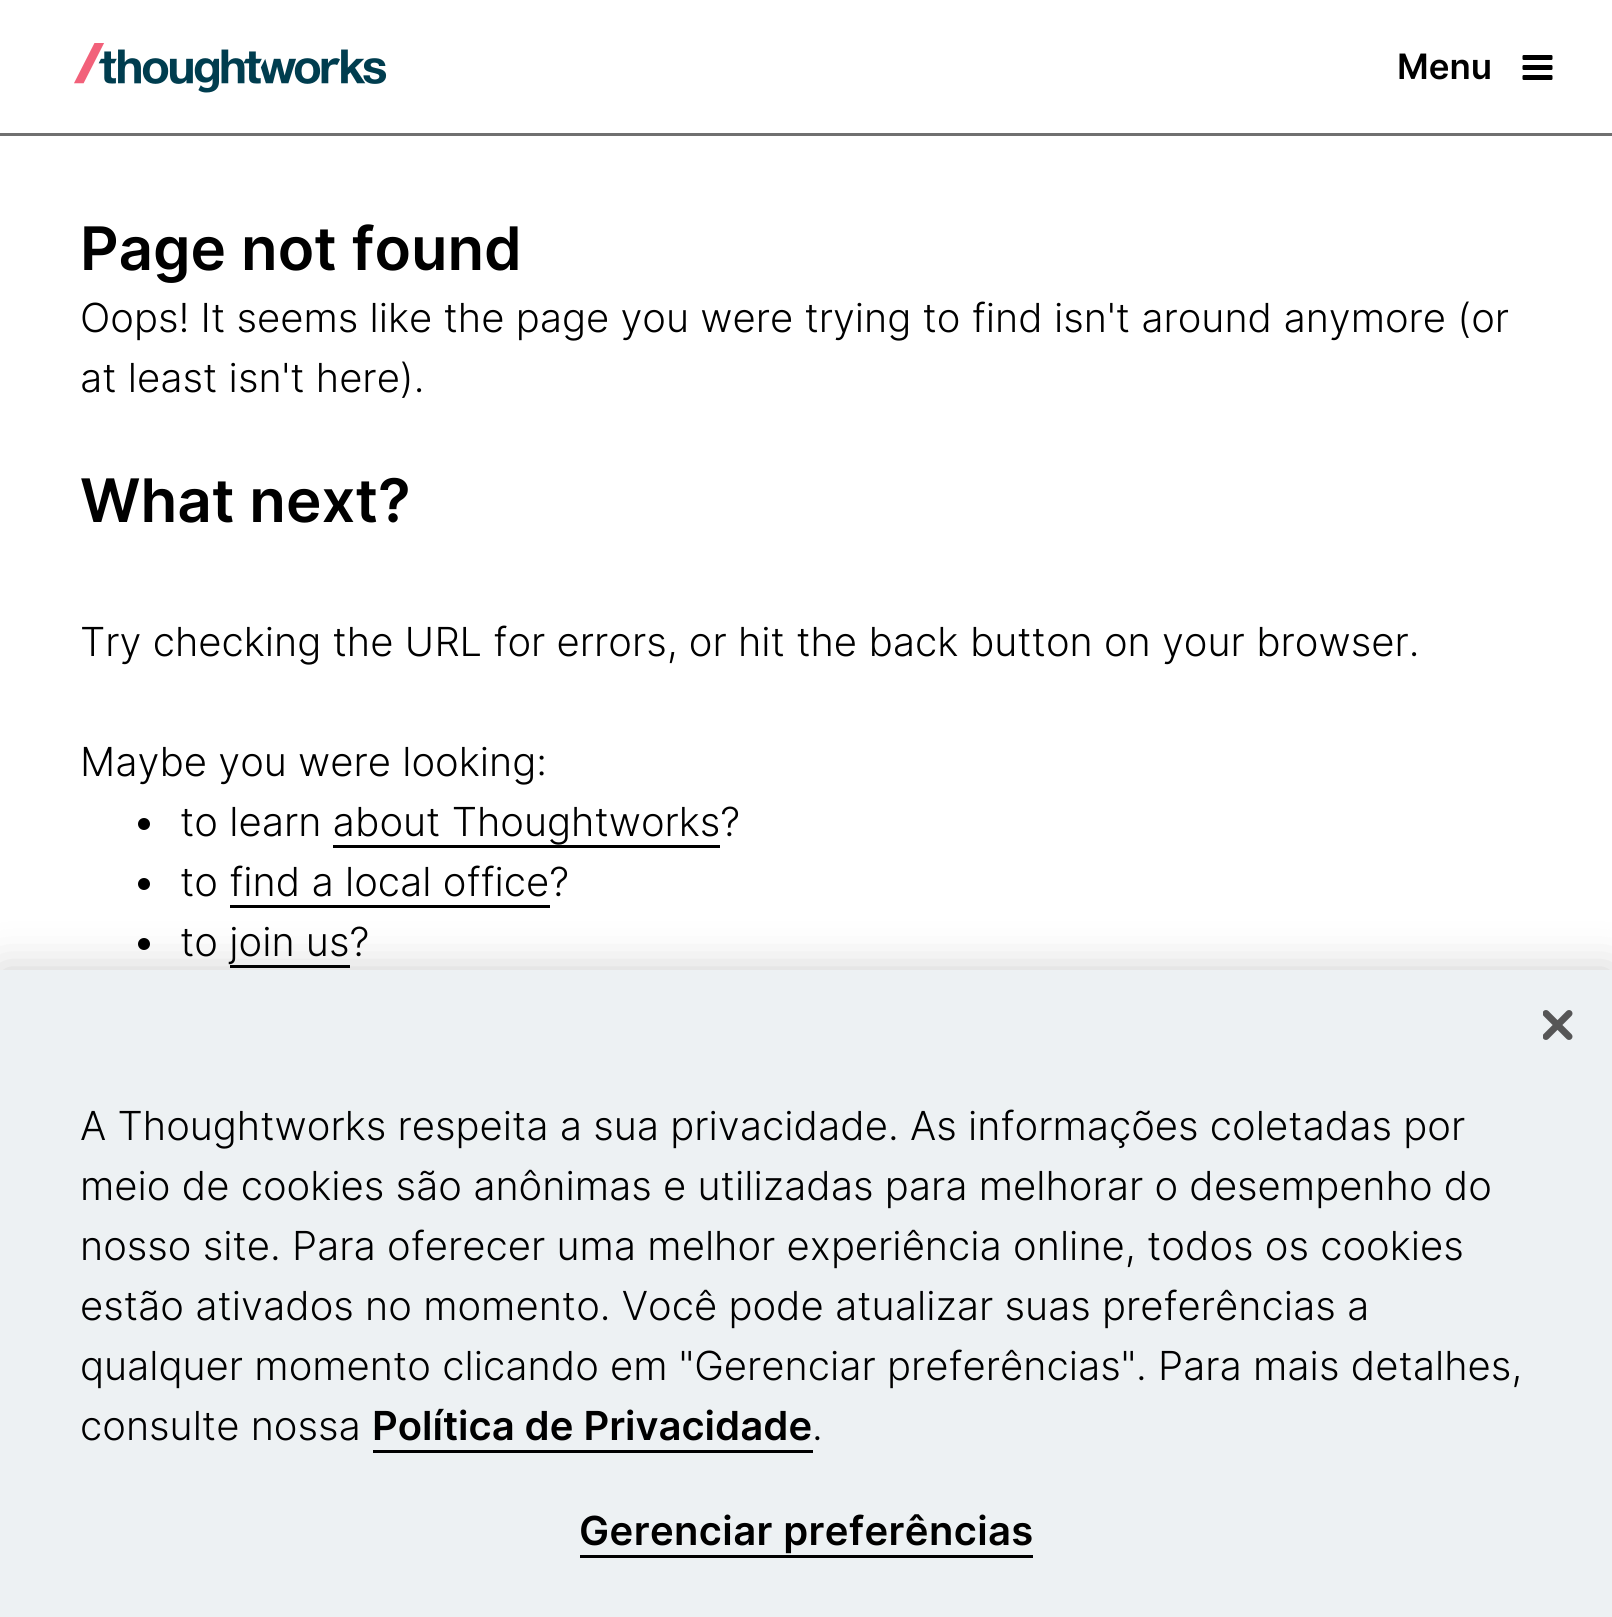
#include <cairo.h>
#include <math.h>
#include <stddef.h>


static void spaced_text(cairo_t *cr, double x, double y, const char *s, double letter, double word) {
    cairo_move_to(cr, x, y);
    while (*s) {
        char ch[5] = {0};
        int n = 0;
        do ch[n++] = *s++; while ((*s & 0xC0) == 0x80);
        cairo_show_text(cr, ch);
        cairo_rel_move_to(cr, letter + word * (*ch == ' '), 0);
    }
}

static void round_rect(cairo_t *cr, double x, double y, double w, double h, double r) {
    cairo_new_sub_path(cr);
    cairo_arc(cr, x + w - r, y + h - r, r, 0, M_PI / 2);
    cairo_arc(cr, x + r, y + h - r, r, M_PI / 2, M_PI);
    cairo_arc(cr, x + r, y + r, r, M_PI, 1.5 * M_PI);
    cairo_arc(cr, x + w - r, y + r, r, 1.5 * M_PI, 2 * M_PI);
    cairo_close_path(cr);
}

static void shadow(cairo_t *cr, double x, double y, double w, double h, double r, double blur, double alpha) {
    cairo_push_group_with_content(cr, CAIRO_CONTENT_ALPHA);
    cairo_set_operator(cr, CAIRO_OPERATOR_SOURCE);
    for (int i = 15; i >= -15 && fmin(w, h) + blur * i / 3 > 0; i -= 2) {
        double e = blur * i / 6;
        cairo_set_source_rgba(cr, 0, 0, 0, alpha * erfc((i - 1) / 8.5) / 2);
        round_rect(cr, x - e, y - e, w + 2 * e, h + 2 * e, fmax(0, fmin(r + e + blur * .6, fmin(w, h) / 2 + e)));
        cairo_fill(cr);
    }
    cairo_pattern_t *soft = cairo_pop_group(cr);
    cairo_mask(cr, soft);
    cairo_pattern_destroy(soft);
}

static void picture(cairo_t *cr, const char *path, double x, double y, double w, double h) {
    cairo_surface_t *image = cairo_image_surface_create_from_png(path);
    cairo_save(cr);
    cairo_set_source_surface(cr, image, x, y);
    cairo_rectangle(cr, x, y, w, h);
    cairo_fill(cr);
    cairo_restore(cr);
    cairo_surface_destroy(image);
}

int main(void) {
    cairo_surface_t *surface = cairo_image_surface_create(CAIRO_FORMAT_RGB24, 1612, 1617);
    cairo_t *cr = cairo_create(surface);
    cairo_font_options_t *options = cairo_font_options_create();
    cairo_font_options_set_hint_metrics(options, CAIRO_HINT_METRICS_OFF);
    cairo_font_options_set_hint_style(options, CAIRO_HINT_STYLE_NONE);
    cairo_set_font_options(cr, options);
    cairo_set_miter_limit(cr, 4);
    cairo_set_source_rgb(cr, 1, 1, 1);
    cairo_paint(cr);
    cairo_set_source_rgb(cr, 0.439, 0.439, 0.439);
    cairo_rectangle(cr, 0, 133, 1612, 3);
    cairo_fill(cr);
    picture(cr, "img1.png", 74, 43, 313, 50);
    cairo_select_font_face(cr, "Inter SemiBold", CAIRO_FONT_SLANT_NORMAL, CAIRO_FONT_WEIGHT_NORMAL);
    cairo_set_font_size(cr, 35);
    cairo_set_source_rgb(cr, 0, 0, 0);
    cairo_move_to(cr, 1397, 79);
    cairo_show_text(cr, "Menu");
    picture(cr, "img2.png", 1522, 55, 31, 25);
    cairo_set_font_size(cr, 60);
    cairo_move_to(cr, 80, 270);
    cairo_show_text(cr, "Page not found");
    cairo_select_font_face(cr, "Inter Light", CAIRO_FONT_SLANT_NORMAL, CAIRO_FONT_WEIGHT_NORMAL);
    cairo_set_font_size(cr, 40);
    cairo_move_to(cr, 80, 332);
    cairo_show_text(cr, "Oops! It seems like the page you were trying to find isn't around anymore (or");
    cairo_move_to(cr, 80, 392);
    cairo_show_text(cr, "at least isn't here).");
    cairo_select_font_face(cr, "Inter SemiBold", CAIRO_FONT_SLANT_NORMAL, CAIRO_FONT_WEIGHT_NORMAL);
    cairo_set_font_size(cr, 60);
    cairo_move_to(cr, 80, 522);
    cairo_show_text(cr, "What next?");
    cairo_select_font_face(cr, "Inter Light", CAIRO_FONT_SLANT_NORMAL, CAIRO_FONT_WEIGHT_NORMAL);
    cairo_set_font_size(cr, 40);
    cairo_move_to(cr, 80, 656);
    cairo_show_text(cr, "Try checking the URL for errors, or hit the back button on your browser.");
    cairo_move_to(cr, 80, 776);
    cairo_show_text(cr, "Maybe you were looking:");
    cairo_new_path(cr);
    cairo_arc(cr, 144, 824, 6, 0, 2 * M_PI);
    cairo_fill(cr);
    cairo_move_to(cr, 180, 836);
    cairo_show_text(cr, "to learn about Thoughtworks?");
    cairo_rectangle(cr, 333, 845, 387, 3);
    cairo_fill(cr);
    cairo_arc(cr, 144, 884, 6, 0, 2 * M_PI);
    cairo_fill(cr);
    cairo_move_to(cr, 180, 896);
    cairo_show_text(cr, "to find a local office?");
    cairo_rectangle(cr, 230, 905, 320, 3);
    cairo_fill(cr);
    cairo_arc(cr, 144, 944, 6, 0, 2 * M_PI);
    cairo_fill(cr);
    cairo_move_to(cr, 180, 956);
    cairo_show_text(cr, "to join us?");
    cairo_rectangle(cr, 230, 965, 120, 3);
    cairo_fill(cr);
    cairo_set_source_rgb(cr, 0, 0, 0);
    shadow(cr, 0, 970, 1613, 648, 0, 22.5, 0.2);
    cairo_set_source_rgb(cr, 0.929, 0.945, 0.953);
    cairo_rectangle(cr, 0, 970, 1612, 647);
    cairo_fill(cr);
    picture(cr, "img3.png", 1543, 1010, 30, 30);
    cairo_set_source_rgb(cr, 0, 0, 0);
    cairo_move_to(cr, 80, 1140);
    cairo_show_text(cr, "A Thoughtworks respeita a sua privacidade. As informações coletadas por");
    cairo_move_to(cr, 80, 1200);
    cairo_show_text(cr, "meio de cookies são anônimas e utilizadas para melhorar o desempenho do");
    cairo_move_to(cr, 80, 1260);
    cairo_show_text(cr, "nosso site. Para oferecer uma melhor experiência online, todos os cookies");
    cairo_move_to(cr, 80, 1320);
    cairo_show_text(cr, "estão ativados no momento. Você pode atualizar suas preferências a");
    cairo_move_to(cr, 80, 1380);
    cairo_show_text(cr, "qualquer momento clicando em \"Gerenciar preferências\". Para mais detalhes,");
    cairo_move_to(cr, 80, 1440);
    cairo_show_text(cr, "consulte nossa");
    cairo_select_font_face(cr, "Inter SemiBold", CAIRO_FONT_SLANT_NORMAL, CAIRO_FONT_WEIGHT_NORMAL);
    cairo_move_to(cr, 372, 1440);
    cairo_show_text(cr, "Política de Privacidade");
    cairo_rectangle(cr, 373, 1450, 440, 3);
    cairo_fill(cr);
    cairo_select_font_face(cr, "Inter Light", CAIRO_FONT_SLANT_NORMAL, CAIRO_FONT_WEIGHT_NORMAL);
    cairo_move_to(cr, 812, 1440);
    cairo_show_text(cr, ".");
    cairo_select_font_face(cr, "Inter SemiBold", CAIRO_FONT_SLANT_NORMAL, CAIRO_FONT_WEIGHT_NORMAL);
    spaced_text(cr, 579, 1545, "Gerenciar preferências", 0.4, 0);
    cairo_rectangle(cr, 580, 1555, 453, 3);
    cairo_fill(cr);
    cairo_surface_write_to_png(surface, "page.png");
    cairo_font_options_destroy(options);
    cairo_destroy(cr);
    cairo_surface_destroy(surface);
    return 0;
}
